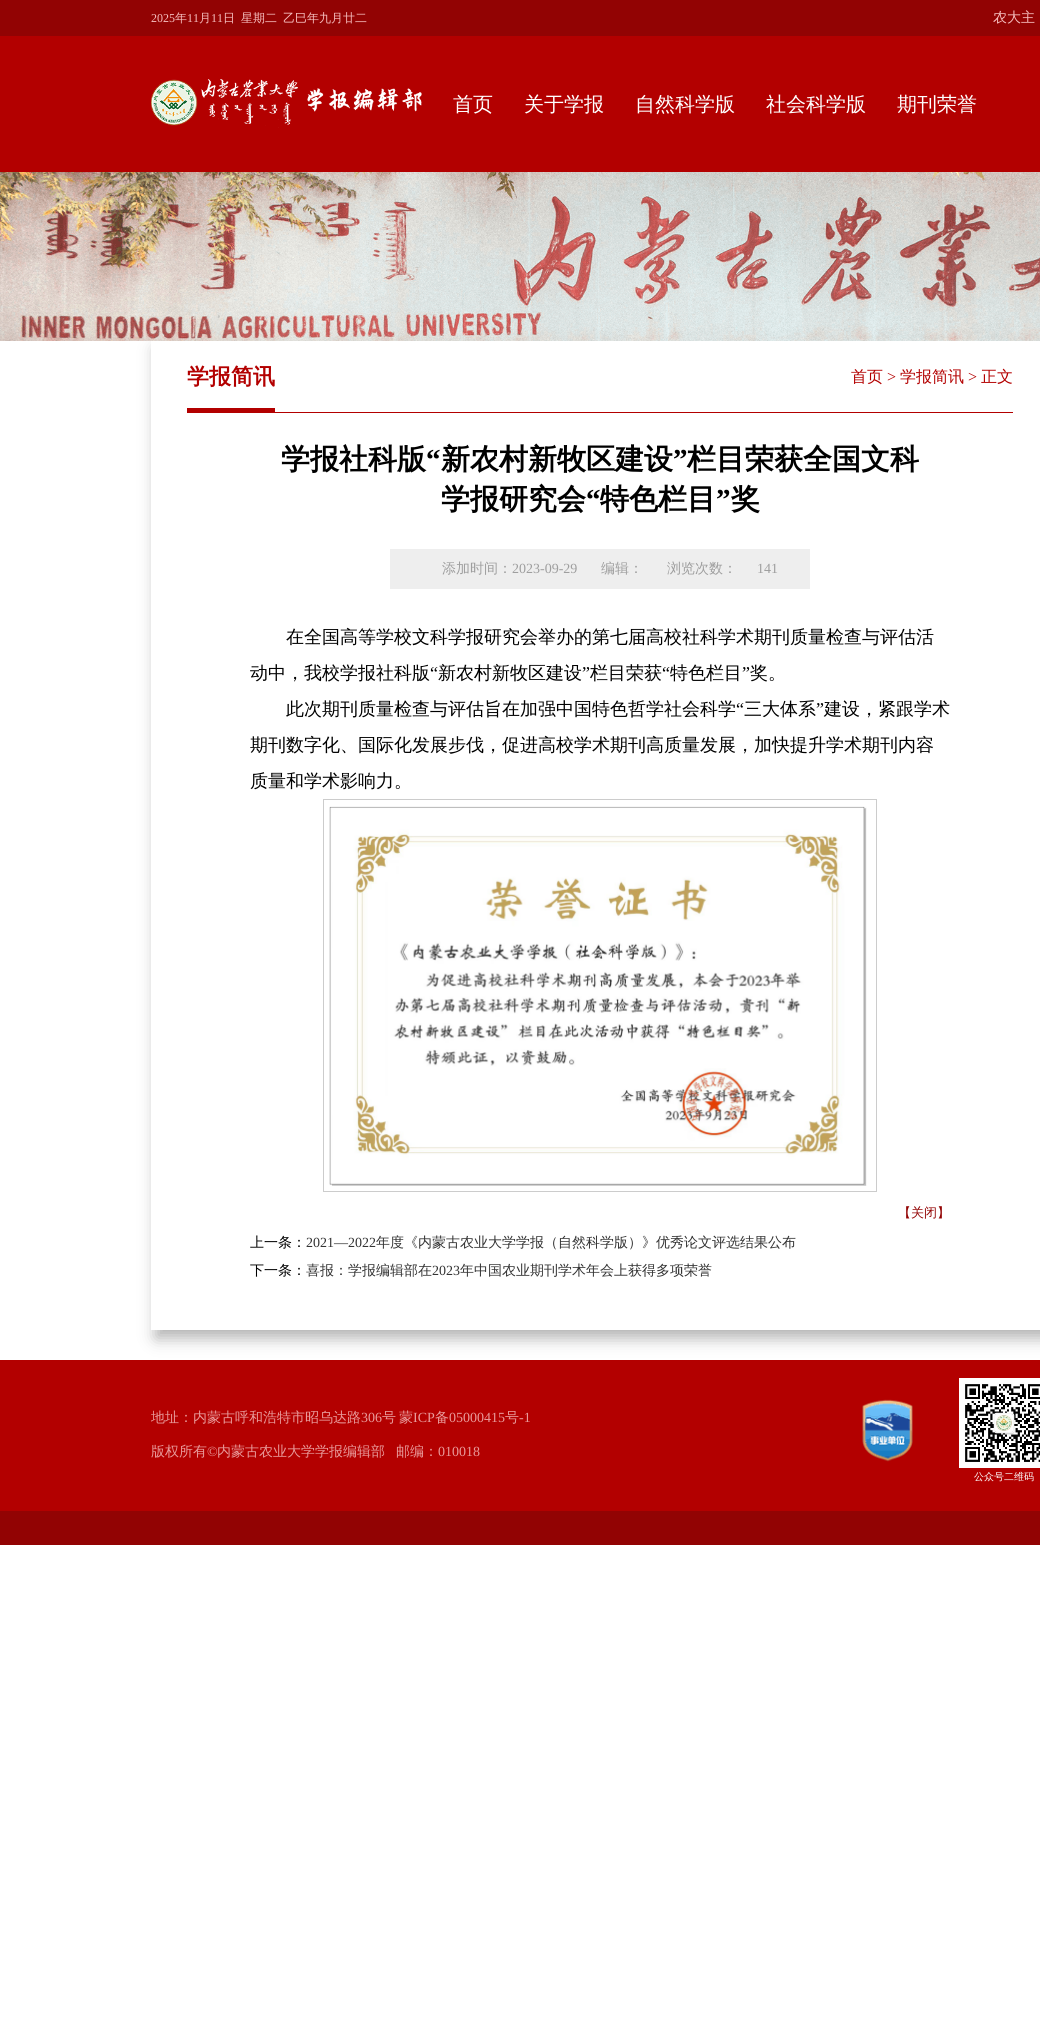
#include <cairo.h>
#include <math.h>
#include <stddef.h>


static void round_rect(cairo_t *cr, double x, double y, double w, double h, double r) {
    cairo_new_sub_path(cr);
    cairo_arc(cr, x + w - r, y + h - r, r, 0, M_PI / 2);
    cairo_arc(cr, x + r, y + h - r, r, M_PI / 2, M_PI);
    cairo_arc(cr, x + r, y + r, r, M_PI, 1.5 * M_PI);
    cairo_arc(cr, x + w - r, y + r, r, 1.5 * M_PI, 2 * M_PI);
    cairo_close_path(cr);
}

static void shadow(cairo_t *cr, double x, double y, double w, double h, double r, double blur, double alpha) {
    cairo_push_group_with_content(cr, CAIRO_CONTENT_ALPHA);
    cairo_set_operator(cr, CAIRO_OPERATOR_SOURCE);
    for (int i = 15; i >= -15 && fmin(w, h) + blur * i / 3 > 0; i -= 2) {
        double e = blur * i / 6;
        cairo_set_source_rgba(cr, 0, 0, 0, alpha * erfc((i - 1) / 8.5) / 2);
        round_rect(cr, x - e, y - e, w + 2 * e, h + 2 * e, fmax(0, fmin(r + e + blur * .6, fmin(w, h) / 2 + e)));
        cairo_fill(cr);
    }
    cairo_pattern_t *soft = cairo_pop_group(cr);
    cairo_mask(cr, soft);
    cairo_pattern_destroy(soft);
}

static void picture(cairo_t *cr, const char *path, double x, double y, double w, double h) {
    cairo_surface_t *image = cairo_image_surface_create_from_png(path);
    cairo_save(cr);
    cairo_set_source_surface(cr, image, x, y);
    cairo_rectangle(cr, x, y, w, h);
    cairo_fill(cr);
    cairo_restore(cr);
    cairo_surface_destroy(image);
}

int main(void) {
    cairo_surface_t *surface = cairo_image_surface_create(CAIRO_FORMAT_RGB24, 1040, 2017);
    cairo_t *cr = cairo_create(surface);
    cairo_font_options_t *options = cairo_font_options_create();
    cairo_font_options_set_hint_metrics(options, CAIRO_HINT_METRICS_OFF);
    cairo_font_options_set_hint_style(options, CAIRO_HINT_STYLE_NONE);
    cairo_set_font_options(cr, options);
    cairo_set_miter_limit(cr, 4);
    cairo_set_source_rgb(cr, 1, 1, 1);
    cairo_paint(cr);
    cairo_set_source_rgb(cr, 0.573, 0.012, 0.012);
    cairo_rectangle(cr, 0, 0, 1040, 36);
    cairo_fill(cr);
    cairo_select_font_face(cr, "Liberation Serif", CAIRO_FONT_SLANT_NORMAL, CAIRO_FONT_WEIGHT_NORMAL);
    cairo_set_font_size(cr, 12);
    cairo_set_source_rgb(cr, 0.961, 0.749, 0.749);
    cairo_move_to(cr, 151, 22);
    cairo_show_text(cr, "2025");
    cairo_select_font_face(cr, "WenQuanYi Zen Hei Medium", CAIRO_FONT_SLANT_NORMAL, CAIRO_FONT_WEIGHT_NORMAL);
    cairo_move_to(cr, 175, 22);
    cairo_show_text(cr, "年");
    cairo_select_font_face(cr, "Liberation Serif", CAIRO_FONT_SLANT_NORMAL, CAIRO_FONT_WEIGHT_NORMAL);
    cairo_move_to(cr, 187, 22);
    cairo_show_text(cr, "11");
    cairo_select_font_face(cr, "WenQuanYi Zen Hei Medium", CAIRO_FONT_SLANT_NORMAL, CAIRO_FONT_WEIGHT_NORMAL);
    cairo_move_to(cr, 199, 22);
    cairo_show_text(cr, "月");
    cairo_select_font_face(cr, "Liberation Serif", CAIRO_FONT_SLANT_NORMAL, CAIRO_FONT_WEIGHT_NORMAL);
    cairo_move_to(cr, 211, 22);
    cairo_show_text(cr, "11");
    cairo_select_font_face(cr, "WenQuanYi Zen Hei Medium", CAIRO_FONT_SLANT_NORMAL, CAIRO_FONT_WEIGHT_NORMAL);
    cairo_move_to(cr, 223, 22);
    cairo_show_text(cr, "日");
    cairo_move_to(cr, 241, 22);
    cairo_show_text(cr, "星期二");
    cairo_move_to(cr, 283, 22);
    cairo_show_text(cr, "乙巳年九月廿二");
    cairo_set_font_size(cr, 14);
    cairo_move_to(cr, 993, 22);
    cairo_show_text(cr, "农大主");
    cairo_set_source_rgb(cr, 0.702, 0, 0);
    cairo_rectangle(cr, 0, 36, 1040, 136);
    cairo_fill(cr);
    picture(cr, "img1.png", 151, 79, 271, 49);
    cairo_set_font_size(cr, 20);
    cairo_set_source_rgb(cr, 1, 1, 1);
    cairo_move_to(cr, 453, 111);
    cairo_show_text(cr, "首页");
    cairo_move_to(cr, 524, 111);
    cairo_show_text(cr, "关于学报");
    cairo_move_to(cr, 635, 111);
    cairo_show_text(cr, "自然科学版");
    cairo_move_to(cr, 766, 111);
    cairo_show_text(cr, "社会科学版");
    cairo_move_to(cr, 897, 111);
    cairo_show_text(cr, "期刊荣誉");
    cairo_set_source_rgb(cr, 0.702, 0, 0);
    cairo_rectangle(cr, 0, 1360, 1040, 151);
    cairo_fill(cr);
    cairo_save(cr);
    cairo_set_fill_rule(cr, CAIRO_FILL_RULE_EVEN_ODD);
    cairo_new_path(cr);
    cairo_move_to(cr, 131, 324);
    cairo_line_to(cr, 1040, 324);
    cairo_line_to(cr, 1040, 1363);
    cairo_line_to(cr, 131, 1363);
    cairo_close_path(cr);
    cairo_move_to(cr, 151, 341);
    cairo_line_to(cr, 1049, 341);
    cairo_line_to(cr, 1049, 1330);
    cairo_line_to(cr, 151, 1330);
    cairo_close_path(cr);
    cairo_clip(cr);
    cairo_set_source_rgb(cr, 0.694, 0.694, 0.694);
    shadow(cr, 156, 349, 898, 989, 0, 8, 1);
    cairo_restore(cr);
    picture(cr, "img2.png", 0, 172, 1040, 169);
    cairo_rectangle(cr, 187, 412, 826, 1);
    cairo_fill(cr);
    cairo_rectangle(cr, 187, 408, 88, 4);
    cairo_fill(cr);
    cairo_select_font_face(cr, "WenQuanYi Zen Hei", CAIRO_FONT_SLANT_NORMAL, CAIRO_FONT_WEIGHT_BOLD);
    cairo_set_font_size(cr, 22);
    cairo_move_to(cr, 187, 384);
    cairo_show_text(cr, "学报简讯");
    cairo_select_font_face(cr, "WenQuanYi Zen Hei Medium", CAIRO_FONT_SLANT_NORMAL, CAIRO_FONT_WEIGHT_NORMAL);
    cairo_set_font_size(cr, 16);
    cairo_move_to(cr, 851, 382);
    cairo_show_text(cr, "首页");
    cairo_select_font_face(cr, "Liberation Serif", CAIRO_FONT_SLANT_NORMAL, CAIRO_FONT_WEIGHT_NORMAL);
    cairo_move_to(cr, 887, 382);
    cairo_show_text(cr, ">");
    cairo_select_font_face(cr, "WenQuanYi Zen Hei Medium", CAIRO_FONT_SLANT_NORMAL, CAIRO_FONT_WEIGHT_NORMAL);
    cairo_move_to(cr, 900, 382);
    cairo_show_text(cr, "学报简讯");
    cairo_select_font_face(cr, "Liberation Serif", CAIRO_FONT_SLANT_NORMAL, CAIRO_FONT_WEIGHT_NORMAL);
    cairo_move_to(cr, 968, 382);
    cairo_show_text(cr, ">");
    cairo_select_font_face(cr, "WenQuanYi Zen Hei Medium", CAIRO_FONT_SLANT_NORMAL, CAIRO_FONT_WEIGHT_NORMAL);
    cairo_move_to(cr, 981, 382);
    cairo_show_text(cr, "正文");
    cairo_select_font_face(cr, "WenQuanYi Zen Hei", CAIRO_FONT_SLANT_NORMAL, CAIRO_FONT_WEIGHT_BOLD);
    cairo_set_font_size(cr, 29);
    cairo_set_source_rgb(cr, 0, 0, 0);
    cairo_move_to(cr, 281, 469);
    cairo_show_text(cr, "学报社科版");
    cairo_select_font_face(cr, "Liberation Serif", CAIRO_FONT_SLANT_NORMAL, CAIRO_FONT_WEIGHT_BOLD);
    cairo_move_to(cr, 426, 469);
    cairo_show_text(cr, "“");
    cairo_select_font_face(cr, "WenQuanYi Zen Hei", CAIRO_FONT_SLANT_NORMAL, CAIRO_FONT_WEIGHT_BOLD);
    cairo_move_to(cr, 441, 469);
    cairo_show_text(cr, "新农村新牧区建设");
    cairo_select_font_face(cr, "Liberation Serif", CAIRO_FONT_SLANT_NORMAL, CAIRO_FONT_WEIGHT_BOLD);
    cairo_move_to(cr, 673, 469);
    cairo_show_text(cr, "”");
    cairo_select_font_face(cr, "WenQuanYi Zen Hei", CAIRO_FONT_SLANT_NORMAL, CAIRO_FONT_WEIGHT_BOLD);
    cairo_move_to(cr, 687, 469);
    cairo_show_text(cr, "栏目荣获全国文科");
    cairo_move_to(cr, 441, 509);
    cairo_show_text(cr, "学报研究会");
    cairo_select_font_face(cr, "Liberation Serif", CAIRO_FONT_SLANT_NORMAL, CAIRO_FONT_WEIGHT_BOLD);
    cairo_move_to(cr, 586, 509);
    cairo_show_text(cr, "“");
    cairo_select_font_face(cr, "WenQuanYi Zen Hei", CAIRO_FONT_SLANT_NORMAL, CAIRO_FONT_WEIGHT_BOLD);
    cairo_move_to(cr, 600, 509);
    cairo_show_text(cr, "特色栏目");
    cairo_select_font_face(cr, "Liberation Serif", CAIRO_FONT_SLANT_NORMAL, CAIRO_FONT_WEIGHT_BOLD);
    cairo_move_to(cr, 716, 509);
    cairo_show_text(cr, "”");
    cairo_select_font_face(cr, "WenQuanYi Zen Hei", CAIRO_FONT_SLANT_NORMAL, CAIRO_FONT_WEIGHT_BOLD);
    cairo_move_to(cr, 731, 509);
    cairo_show_text(cr, "奖");
    cairo_set_source_rgb(cr, 0.933, 0.933, 0.933);
    cairo_rectangle(cr, 390, 549, 420, 40);
    cairo_fill(cr);
    cairo_select_font_face(cr, "WenQuanYi Zen Hei Medium", CAIRO_FONT_SLANT_NORMAL, CAIRO_FONT_WEIGHT_NORMAL);
    cairo_set_font_size(cr, 14);
    cairo_set_source_rgb(cr, 0.62, 0.62, 0.62);
    cairo_move_to(cr, 442, 573);
    cairo_show_text(cr, "添加时间：");
    cairo_select_font_face(cr, "Liberation Serif", CAIRO_FONT_SLANT_NORMAL, CAIRO_FONT_WEIGHT_NORMAL);
    cairo_move_to(cr, 512, 573);
    cairo_show_text(cr, "2023-09-29");
    cairo_select_font_face(cr, "WenQuanYi Zen Hei Medium", CAIRO_FONT_SLANT_NORMAL, CAIRO_FONT_WEIGHT_NORMAL);
    cairo_move_to(cr, 601, 573);
    cairo_show_text(cr, "编辑：");
    cairo_move_to(cr, 667, 573);
    cairo_show_text(cr, "浏览次数：");
    cairo_select_font_face(cr, "Liberation Serif", CAIRO_FONT_SLANT_NORMAL, CAIRO_FONT_WEIGHT_NORMAL);
    cairo_move_to(cr, 757, 573);
    cairo_show_text(cr, "141");
    cairo_select_font_face(cr, "WenQuanYi Zen Hei Medium", CAIRO_FONT_SLANT_NORMAL, CAIRO_FONT_WEIGHT_NORMAL);
    cairo_set_font_size(cr, 18);
    cairo_set_source_rgb(cr, 0, 0, 0);
    cairo_move_to(cr, 286, 643);
    cairo_show_text(cr, "在全国高等学校文科学报研究会举办的第七届高校社科学术期刊质量检查与评估活");
    cairo_move_to(cr, 250, 679);
    cairo_show_text(cr, "动中，我校学报社科版");
    cairo_select_font_face(cr, "Liberation Serif", CAIRO_FONT_SLANT_NORMAL, CAIRO_FONT_WEIGHT_NORMAL);
    cairo_move_to(cr, 430, 679);
    cairo_show_text(cr, "“");
    cairo_select_font_face(cr, "WenQuanYi Zen Hei Medium", CAIRO_FONT_SLANT_NORMAL, CAIRO_FONT_WEIGHT_NORMAL);
    cairo_move_to(cr, 438, 679);
    cairo_show_text(cr, "新农村新牧区建设");
    cairo_select_font_face(cr, "Liberation Serif", CAIRO_FONT_SLANT_NORMAL, CAIRO_FONT_WEIGHT_NORMAL);
    cairo_move_to(cr, 582, 679);
    cairo_show_text(cr, "”");
    cairo_select_font_face(cr, "WenQuanYi Zen Hei Medium", CAIRO_FONT_SLANT_NORMAL, CAIRO_FONT_WEIGHT_NORMAL);
    cairo_move_to(cr, 590, 679);
    cairo_show_text(cr, "栏目荣获");
    cairo_select_font_face(cr, "Liberation Serif", CAIRO_FONT_SLANT_NORMAL, CAIRO_FONT_WEIGHT_NORMAL);
    cairo_move_to(cr, 662, 679);
    cairo_show_text(cr, "“");
    cairo_select_font_face(cr, "WenQuanYi Zen Hei Medium", CAIRO_FONT_SLANT_NORMAL, CAIRO_FONT_WEIGHT_NORMAL);
    cairo_move_to(cr, 670, 679);
    cairo_show_text(cr, "特色栏目");
    cairo_select_font_face(cr, "Liberation Serif", CAIRO_FONT_SLANT_NORMAL, CAIRO_FONT_WEIGHT_NORMAL);
    cairo_move_to(cr, 742, 679);
    cairo_show_text(cr, "”");
    cairo_select_font_face(cr, "WenQuanYi Zen Hei Medium", CAIRO_FONT_SLANT_NORMAL, CAIRO_FONT_WEIGHT_NORMAL);
    cairo_move_to(cr, 750, 679);
    cairo_show_text(cr, "奖。");
    cairo_move_to(cr, 286, 715);
    cairo_show_text(cr, "此次期刊质量检查与评估旨在加强中国特色哲学社会科学");
    cairo_select_font_face(cr, "Liberation Serif", CAIRO_FONT_SLANT_NORMAL, CAIRO_FONT_WEIGHT_NORMAL);
    cairo_move_to(cr, 736, 715);
    cairo_show_text(cr, "“");
    cairo_select_font_face(cr, "WenQuanYi Zen Hei Medium", CAIRO_FONT_SLANT_NORMAL, CAIRO_FONT_WEIGHT_NORMAL);
    cairo_move_to(cr, 744, 715);
    cairo_show_text(cr, "三大体系");
    cairo_select_font_face(cr, "Liberation Serif", CAIRO_FONT_SLANT_NORMAL, CAIRO_FONT_WEIGHT_NORMAL);
    cairo_move_to(cr, 816, 715);
    cairo_show_text(cr, "”");
    cairo_select_font_face(cr, "WenQuanYi Zen Hei Medium", CAIRO_FONT_SLANT_NORMAL, CAIRO_FONT_WEIGHT_NORMAL);
    cairo_move_to(cr, 824, 715);
    cairo_show_text(cr, "建设，紧跟学术");
    cairo_move_to(cr, 250, 751);
    cairo_show_text(cr, "期刊数字化、国际化发展步伐，促进高校学术期刊高质量发展，加快提升学术期刊内容");
    cairo_move_to(cr, 250, 787);
    cairo_show_text(cr, "质量和学术影响力。");
    cairo_rectangle(cr, 323.5, 799.5, 553, 392);
    cairo_set_source_rgb(cr, 0.8, 0.8, 0.8);
    cairo_set_line_width(cr, 1);
    cairo_stroke(cr);
    picture(cr, "img3.png", 329, 806, 538, 380);
    cairo_set_font_size(cr, 13);
    cairo_set_source_rgb(cr, 0.573, 0.012, 0.012);
    cairo_move_to(cr, 898, 1217);
    cairo_show_text(cr, "【关闭】");
    cairo_set_font_size(cr, 14);
    cairo_set_source_rgb(cr, 0, 0, 0);
    cairo_move_to(cr, 250, 1247);
    cairo_show_text(cr, "上一条：");
    cairo_select_font_face(cr, "Liberation Serif", CAIRO_FONT_SLANT_NORMAL, CAIRO_FONT_WEIGHT_NORMAL);
    cairo_set_source_rgb(cr, 0.2, 0.2, 0.2);
    cairo_move_to(cr, 306, 1247);
    cairo_show_text(cr, "2021—2022");
    cairo_select_font_face(cr, "WenQuanYi Zen Hei Medium", CAIRO_FONT_SLANT_NORMAL, CAIRO_FONT_WEIGHT_NORMAL);
    cairo_move_to(cr, 376, 1247);
    cairo_show_text(cr, "年度《内蒙古农业大学学报（自然科学版）》优秀论文评选结果公布");
    cairo_set_source_rgb(cr, 0, 0, 0);
    cairo_move_to(cr, 250, 1275);
    cairo_show_text(cr, "下一条：");
    cairo_set_source_rgb(cr, 0.2, 0.2, 0.2);
    cairo_move_to(cr, 306, 1275);
    cairo_show_text(cr, "喜报：学报编辑部在");
    cairo_select_font_face(cr, "Liberation Serif", CAIRO_FONT_SLANT_NORMAL, CAIRO_FONT_WEIGHT_NORMAL);
    cairo_move_to(cr, 432, 1275);
    cairo_show_text(cr, "2023");
    cairo_select_font_face(cr, "WenQuanYi Zen Hei Medium", CAIRO_FONT_SLANT_NORMAL, CAIRO_FONT_WEIGHT_NORMAL);
    cairo_move_to(cr, 460, 1275);
    cairo_show_text(cr, "年中国农业期刊学术年会上获得多项荣誉");
    cairo_set_source_rgb(cr, 0.91, 0.604, 0.604);
    cairo_move_to(cr, 151, 1422);
    cairo_show_text(cr, "地址：内蒙古呼和浩特市昭乌达路");
    cairo_select_font_face(cr, "Liberation Serif", CAIRO_FONT_SLANT_NORMAL, CAIRO_FONT_WEIGHT_NORMAL);
    cairo_move_to(cr, 361, 1422);
    cairo_show_text(cr, "306");
    cairo_select_font_face(cr, "WenQuanYi Zen Hei Medium", CAIRO_FONT_SLANT_NORMAL, CAIRO_FONT_WEIGHT_NORMAL);
    cairo_move_to(cr, 382, 1422);
    cairo_show_text(cr, "号");
    cairo_move_to(cr, 399, 1422);
    cairo_show_text(cr, "蒙");
    cairo_select_font_face(cr, "Liberation Serif", CAIRO_FONT_SLANT_NORMAL, CAIRO_FONT_WEIGHT_NORMAL);
    cairo_move_to(cr, 413, 1422);
    cairo_show_text(cr, "ICP");
    cairo_select_font_face(cr, "WenQuanYi Zen Hei Medium", CAIRO_FONT_SLANT_NORMAL, CAIRO_FONT_WEIGHT_NORMAL);
    cairo_move_to(cr, 435, 1422);
    cairo_show_text(cr, "备");
    cairo_select_font_face(cr, "Liberation Serif", CAIRO_FONT_SLANT_NORMAL, CAIRO_FONT_WEIGHT_NORMAL);
    cairo_move_to(cr, 449, 1422);
    cairo_show_text(cr, "05000415");
    cairo_select_font_face(cr, "WenQuanYi Zen Hei Medium", CAIRO_FONT_SLANT_NORMAL, CAIRO_FONT_WEIGHT_NORMAL);
    cairo_move_to(cr, 505, 1422);
    cairo_show_text(cr, "号");
    cairo_select_font_face(cr, "Liberation Serif", CAIRO_FONT_SLANT_NORMAL, CAIRO_FONT_WEIGHT_NORMAL);
    cairo_move_to(cr, 519, 1422);
    cairo_show_text(cr, "-1");
    cairo_select_font_face(cr, "WenQuanYi Zen Hei Medium", CAIRO_FONT_SLANT_NORMAL, CAIRO_FONT_WEIGHT_NORMAL);
    cairo_move_to(cr, 151, 1456);
    cairo_show_text(cr, "版权所有");
    cairo_select_font_face(cr, "Liberation Serif", CAIRO_FONT_SLANT_NORMAL, CAIRO_FONT_WEIGHT_NORMAL);
    cairo_move_to(cr, 207, 1456);
    cairo_show_text(cr, "©");
    cairo_select_font_face(cr, "WenQuanYi Zen Hei Medium", CAIRO_FONT_SLANT_NORMAL, CAIRO_FONT_WEIGHT_NORMAL);
    cairo_move_to(cr, 217, 1456);
    cairo_show_text(cr, "内蒙古农业大学学报编辑部");
    cairo_move_to(cr, 396, 1456);
    cairo_show_text(cr, "邮编：");
    cairo_select_font_face(cr, "Liberation Serif", CAIRO_FONT_SLANT_NORMAL, CAIRO_FONT_WEIGHT_NORMAL);
    cairo_move_to(cr, 438, 1456);
    cairo_show_text(cr, "010018");
    picture(cr, "img4.png", 862, 1399, 51, 63);
    picture(cr, "img5.png", 959, 1378, 81, 90);
    cairo_select_font_face(cr, "WenQuanYi Zen Hei Medium", CAIRO_FONT_SLANT_NORMAL, CAIRO_FONT_WEIGHT_NORMAL);
    cairo_set_font_size(cr, 10);
    cairo_set_source_rgb(cr, 1, 1, 1);
    cairo_move_to(cr, 974, 1480);
    cairo_show_text(cr, "公众号二维码");
    cairo_set_source_rgb(cr, 0.573, 0.012, 0.012);
    cairo_rectangle(cr, 0, 1511, 1040, 34);
    cairo_fill(cr);
    cairo_surface_write_to_png(surface, "page.png");
    cairo_font_options_destroy(options);
    cairo_destroy(cr);
    cairo_surface_destroy(surface);
    return 0;
}
